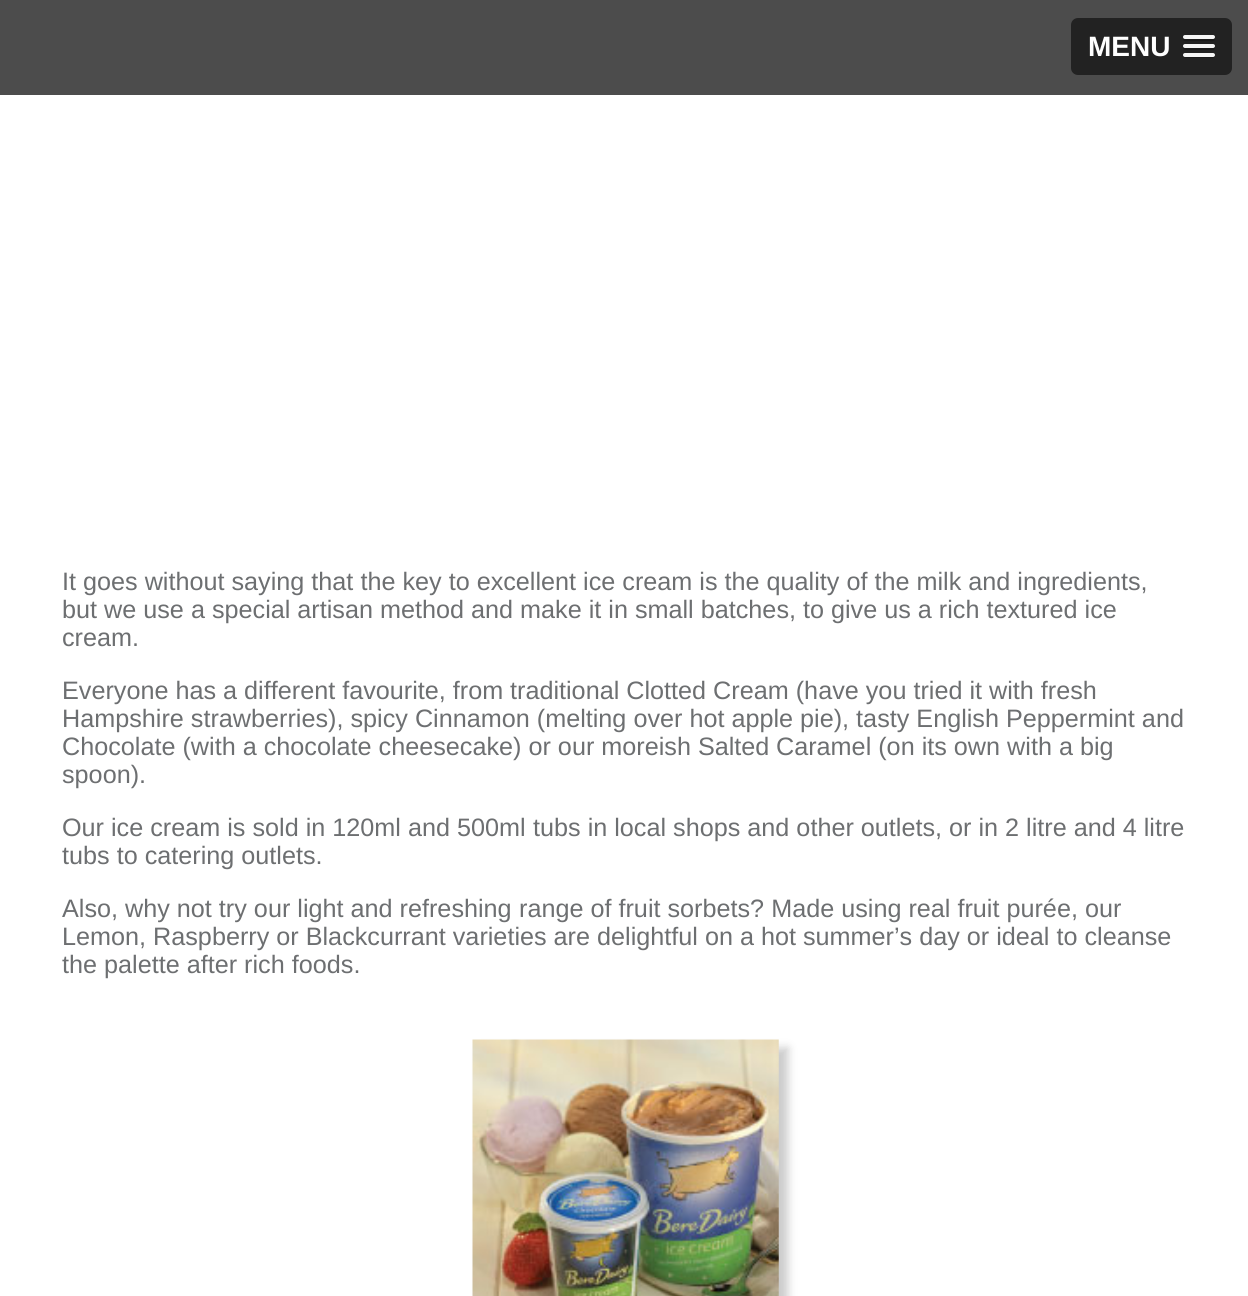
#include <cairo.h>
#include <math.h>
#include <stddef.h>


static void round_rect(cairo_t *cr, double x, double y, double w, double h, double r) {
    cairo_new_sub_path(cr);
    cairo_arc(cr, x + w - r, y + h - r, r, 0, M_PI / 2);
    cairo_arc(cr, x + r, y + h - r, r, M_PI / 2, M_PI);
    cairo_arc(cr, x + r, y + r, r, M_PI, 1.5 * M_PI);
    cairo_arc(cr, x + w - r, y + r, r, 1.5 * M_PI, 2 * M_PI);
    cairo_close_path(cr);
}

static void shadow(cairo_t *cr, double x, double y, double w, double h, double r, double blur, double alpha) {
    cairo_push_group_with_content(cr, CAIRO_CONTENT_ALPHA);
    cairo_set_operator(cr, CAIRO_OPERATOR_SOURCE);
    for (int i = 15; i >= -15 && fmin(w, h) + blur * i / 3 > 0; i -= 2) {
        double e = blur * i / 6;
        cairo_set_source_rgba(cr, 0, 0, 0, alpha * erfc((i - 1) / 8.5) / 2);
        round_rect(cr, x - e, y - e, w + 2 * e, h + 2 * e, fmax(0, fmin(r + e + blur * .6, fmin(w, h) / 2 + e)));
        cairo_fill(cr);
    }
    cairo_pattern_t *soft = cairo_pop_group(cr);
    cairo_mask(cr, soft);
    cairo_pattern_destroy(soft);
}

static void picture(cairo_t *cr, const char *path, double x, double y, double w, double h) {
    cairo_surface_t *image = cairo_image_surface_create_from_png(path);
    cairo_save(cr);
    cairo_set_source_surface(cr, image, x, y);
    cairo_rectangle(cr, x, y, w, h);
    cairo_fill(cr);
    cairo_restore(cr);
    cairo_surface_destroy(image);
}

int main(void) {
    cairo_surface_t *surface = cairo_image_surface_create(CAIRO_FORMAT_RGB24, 1248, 1296);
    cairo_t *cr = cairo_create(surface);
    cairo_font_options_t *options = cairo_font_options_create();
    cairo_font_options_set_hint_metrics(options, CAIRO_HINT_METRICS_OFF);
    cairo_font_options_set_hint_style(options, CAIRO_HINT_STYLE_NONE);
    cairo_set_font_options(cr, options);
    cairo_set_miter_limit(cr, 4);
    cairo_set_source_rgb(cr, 1, 1, 1);
    cairo_paint(cr);
    cairo_set_source_rgb(cr, 0.298, 0.298, 0.298);
    cairo_rectangle(cr, 0, 0, 1248, 95);
    cairo_fill(cr);
    cairo_set_source_rgb(cr, 0.133, 0.133, 0.133);
    round_rect(cr, 1071, 18, 161, 57, 7);
    cairo_fill(cr);
    cairo_select_font_face(cr, "Liberation Sans", CAIRO_FONT_SLANT_NORMAL, CAIRO_FONT_WEIGHT_BOLD);
    cairo_set_font_size(cr, 28);
    cairo_set_source_rgb(cr, 1, 1, 1);
    cairo_move_to(cr, 1088, 56);
    cairo_show_text(cr, "MENU");
    cairo_set_source_rgb(cr, 0.102, 0.102, 0.102);
    cairo_new_path(cr);
    cairo_move_to(cr, 1183.5, 38);
    cairo_line_to(cr, 1183, 39.5);
    cairo_curve_to(cr, 1183.5, 42, 1188.5, 41, 1189.5, 41);
    cairo_line_to(cr, 1208.5, 41);
    cairo_curve_to(cr, 1210, 41, 1215, 42, 1215, 39);
    cairo_line_to(cr, 1214.5, 37.5);
    cairo_curve_to(cr, 1214, 38, 1213.5, 38.5, 1213, 38.5);
    cairo_line_to(cr, 1184.5, 38.5);
    cairo_close_path(cr);
    cairo_fill(cr);
    cairo_set_source_rgb(cr, 0.961, 0.961, 0.961);
    round_rect(cr, 1183, 35, 32, 4, 2);
    cairo_fill(cr);
    cairo_set_source_rgb(cr, 0.102, 0.102, 0.102);
    cairo_new_path(cr);
    cairo_move_to(cr, 1183.5, 46.5);
    cairo_curve_to(cr, 1183, 47, 1183, 48, 1183, 48.5);
    cairo_curve_to(cr, 1183.5, 51, 1188.5, 50, 1189.5, 50);
    cairo_line_to(cr, 1213, 50);
    cairo_curve_to(cr, 1215, 50, 1215.5, 47.5, 1214, 46.5);
    cairo_line_to(cr, 1213, 47);
    cairo_line_to(cr, 1184.5, 47);
    cairo_close_path(cr);
    cairo_fill(cr);
    cairo_set_source_rgb(cr, 0.961, 0.961, 0.961);
    round_rect(cr, 1183, 44, 32, 4, 2);
    cairo_fill(cr);
    cairo_set_source_rgb(cr, 0.102, 0.102, 0.102);
    cairo_new_path(cr);
    cairo_move_to(cr, 1183, 55);
    cairo_curve_to(cr, 1181.5, 59, 1189, 58, 1189.5, 58);
    cairo_line_to(cr, 1208.5, 58);
    cairo_curve_to(cr, 1209.5, 58, 1214.5, 59, 1215, 56.5);
    cairo_curve_to(cr, 1215, 56, 1215, 55, 1214.5, 54.5);
    cairo_curve_to(cr, 1214.5, 55.5, 1213.5, 56, 1213, 56);
    cairo_line_to(cr, 1185, 56);
    cairo_curve_to(cr, 1184, 56, 1183.5, 55.5, 1183, 55);
    cairo_close_path(cr);
    cairo_fill(cr);
    cairo_set_source_rgb(cr, 0.961, 0.961, 0.961);
    round_rect(cr, 1183, 53, 32, 4, 2);
    cairo_fill(cr);
    cairo_select_font_face(cr, "Liberation Sans", CAIRO_FONT_SLANT_NORMAL, CAIRO_FONT_WEIGHT_NORMAL);
    cairo_set_font_size(cr, 25.2);
    cairo_set_source_rgb(cr, 0.427, 0.435, 0.443);
    cairo_move_to(cr, 62, 590);
    cairo_show_text(cr, "It goes without saying that the key to excellent ice cream is the quality of the milk and ingredients,");
    cairo_move_to(cr, 62, 618);
    cairo_show_text(cr, "but we use a special artisan method and make it in small batches, to give us a rich textured ice");
    cairo_move_to(cr, 62, 646);
    cairo_show_text(cr, "cream.");
    cairo_move_to(cr, 62, 699);
    cairo_show_text(cr, "Everyone has a different favourite, from");
    cairo_move_to(cr, 510, 699);
    cairo_show_text(cr, "traditional Clotted Cream (have you tried it with fresh");
    cairo_move_to(cr, 62, 727);
    cairo_show_text(cr, "Hampshire strawberries), spicy Cinnamon (melting over hot apple pie), tasty English");
    cairo_move_to(cr, 1006, 727);
    cairo_show_text(cr, "Peppermint and");
    cairo_move_to(cr, 62, 755);
    cairo_show_text(cr, "Chocolate (with a chocolate cheesecake) or our moreish Salted");
    cairo_move_to(cr, 776, 755);
    cairo_show_text(cr, "Caramel (on its own with a big");
    cairo_move_to(cr, 62, 783);
    cairo_show_text(cr, "spoon).");
    cairo_move_to(cr, 62, 836);
    cairo_show_text(cr, "Our ice cream is sold in 120ml and 500ml");
    cairo_move_to(cr, 533, 836);
    cairo_show_text(cr, "tubs in local shops and other outlets, or in 2 litre and 4 litre");
    cairo_move_to(cr, 62, 864);
    cairo_show_text(cr, "tubs to catering outlets.");
    cairo_move_to(cr, 62, 917);
    cairo_show_text(cr, "Also, why not try our light and refreshing");
    cairo_move_to(cr, 519, 917);
    cairo_show_text(cr, "range of fruit sorbets? Made using real fruit purée, our");
    cairo_move_to(cr, 62, 945);
    cairo_show_text(cr, "Lemon, Raspberry or Blackcurrant varieties are delightful on a hot summer’s day or ideal to cleanse");
    cairo_move_to(cr, 62, 973);
    cairo_show_text(cr, "the palette after rich foods.");
    cairo_set_source_rgb(cr, 0.8, 0.8, 0.8);
    shadow(cr, 481, 1048, 307, 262, 0, 4.5, 1);
    picture(cr, "img1.png", 472, 1039, 307, 257);
    cairo_surface_write_to_png(surface, "page.png");
    cairo_font_options_destroy(options);
    cairo_destroy(cr);
    cairo_surface_destroy(surface);
    return 0;
}
